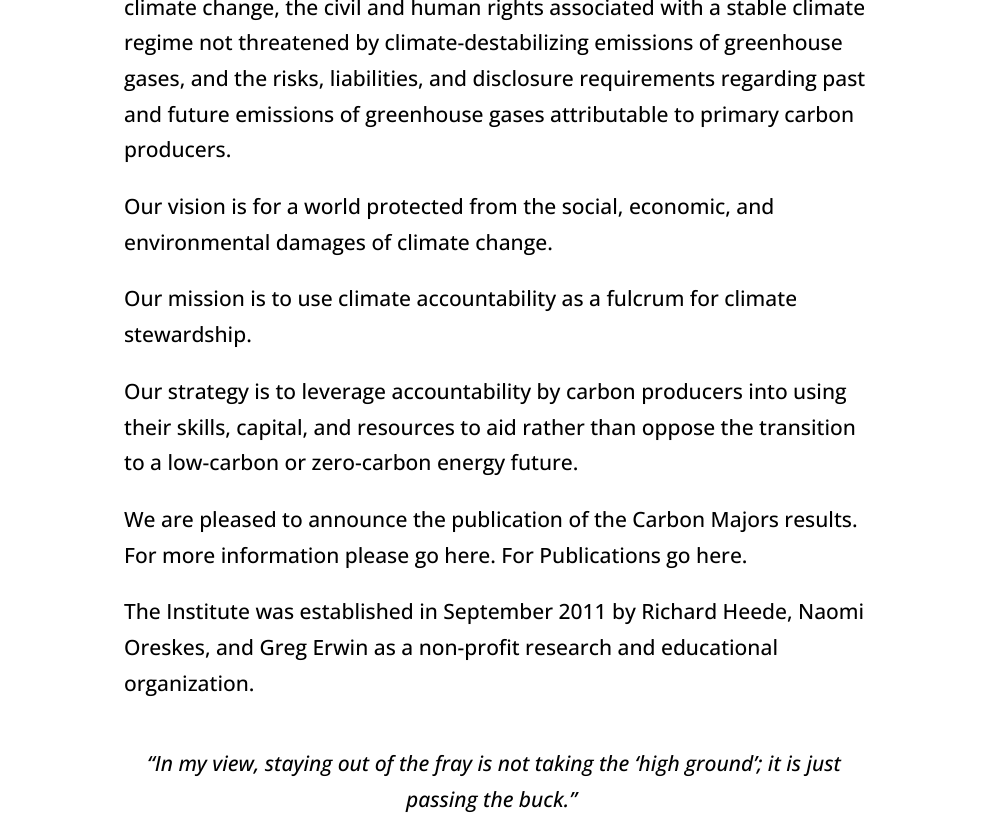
#include <cairo.h>
#include <math.h>
#include <stddef.h>


int main(void) {
    cairo_surface_t *surface = cairo_image_surface_create(CAIRO_FORMAT_RGB24, 988, 816);
    cairo_t *cr = cairo_create(surface);
    cairo_font_options_t *options = cairo_font_options_create();
    cairo_font_options_set_hint_metrics(options, CAIRO_HINT_METRICS_OFF);
    cairo_font_options_set_hint_style(options, CAIRO_HINT_STYLE_NONE);
    cairo_set_font_options(cr, options);
    cairo_set_miter_limit(cr, 4);
    cairo_set_source_rgb(cr, 1, 1, 1);
    cairo_paint(cr);
    cairo_select_font_face(cr, "Open Sans Medium", CAIRO_FONT_SLANT_NORMAL, CAIRO_FONT_WEIGHT_NORMAL);
    cairo_set_font_size(cr, 21);
    cairo_set_source_rgb(cr, 0, 0, 0);
    cairo_move_to(cr, 124, 15);
    cairo_show_text(cr, "climate change, the civil and human rights associated with a stable climate");
    cairo_move_to(cr, 124, 50);
    cairo_show_text(cr, "regime not threatened by climate-destabilizing emissions of greenhouse");
    cairo_move_to(cr, 124, 86);
    cairo_show_text(cr, "gases, and the risks, liabilities, and disclosure requirements regarding past");
    cairo_move_to(cr, 124, 122);
    cairo_show_text(cr, "and future emissions of greenhouse gases attributable to primary carbon");
    cairo_move_to(cr, 124, 157);
    cairo_show_text(cr, "producers.");
    cairo_move_to(cr, 124, 214);
    cairo_show_text(cr, "Our vision is for a world protected from the social, economic, and");
    cairo_move_to(cr, 124, 250);
    cairo_show_text(cr, "environmental damages of climate change.");
    cairo_move_to(cr, 124, 306);
    cairo_show_text(cr, "Our mission is to use climate accountability as a fulcrum for climate");
    cairo_move_to(cr, 124, 342);
    cairo_show_text(cr, "stewardship.");
    cairo_move_to(cr, 124, 399);
    cairo_show_text(cr, "Our strategy is to leverage accountability by carbon producers into using");
    cairo_move_to(cr, 124, 435);
    cairo_show_text(cr, "their skills, capital, and resources to aid rather than oppose the transition");
    cairo_move_to(cr, 124, 470);
    cairo_show_text(cr, "to a low-carbon or zero-carbon energy future.");
    cairo_move_to(cr, 124, 527);
    cairo_show_text(cr, "We are pleased to announce the publication of the Carbon Majors results.");
    cairo_move_to(cr, 124, 563);
    cairo_show_text(cr, "For more information please go here. For Publications go here.");
    cairo_move_to(cr, 124, 619);
    cairo_show_text(cr, "The Institute was established in September 2011 by Richard Heede, Naomi");
    cairo_move_to(cr, 124, 655);
    cairo_show_text(cr, "Oreskes, and Greg Erwin as a non-profit research and educational");
    cairo_move_to(cr, 124, 691);
    cairo_show_text(cr, "organization.");
    cairo_select_font_face(cr, "Open Sans Medium", CAIRO_FONT_SLANT_ITALIC, CAIRO_FONT_WEIGHT_NORMAL);
    cairo_move_to(cr, 147, 771);
    cairo_show_text(cr, "“In my view, staying out of the fray is not taking the ‘high ground’; it is just");
    cairo_move_to(cr, 406, 807);
    cairo_show_text(cr, "passing the buck.”");
    cairo_surface_write_to_png(surface, "page.png");
    cairo_font_options_destroy(options);
    cairo_destroy(cr);
    cairo_surface_destroy(surface);
    return 0;
}
